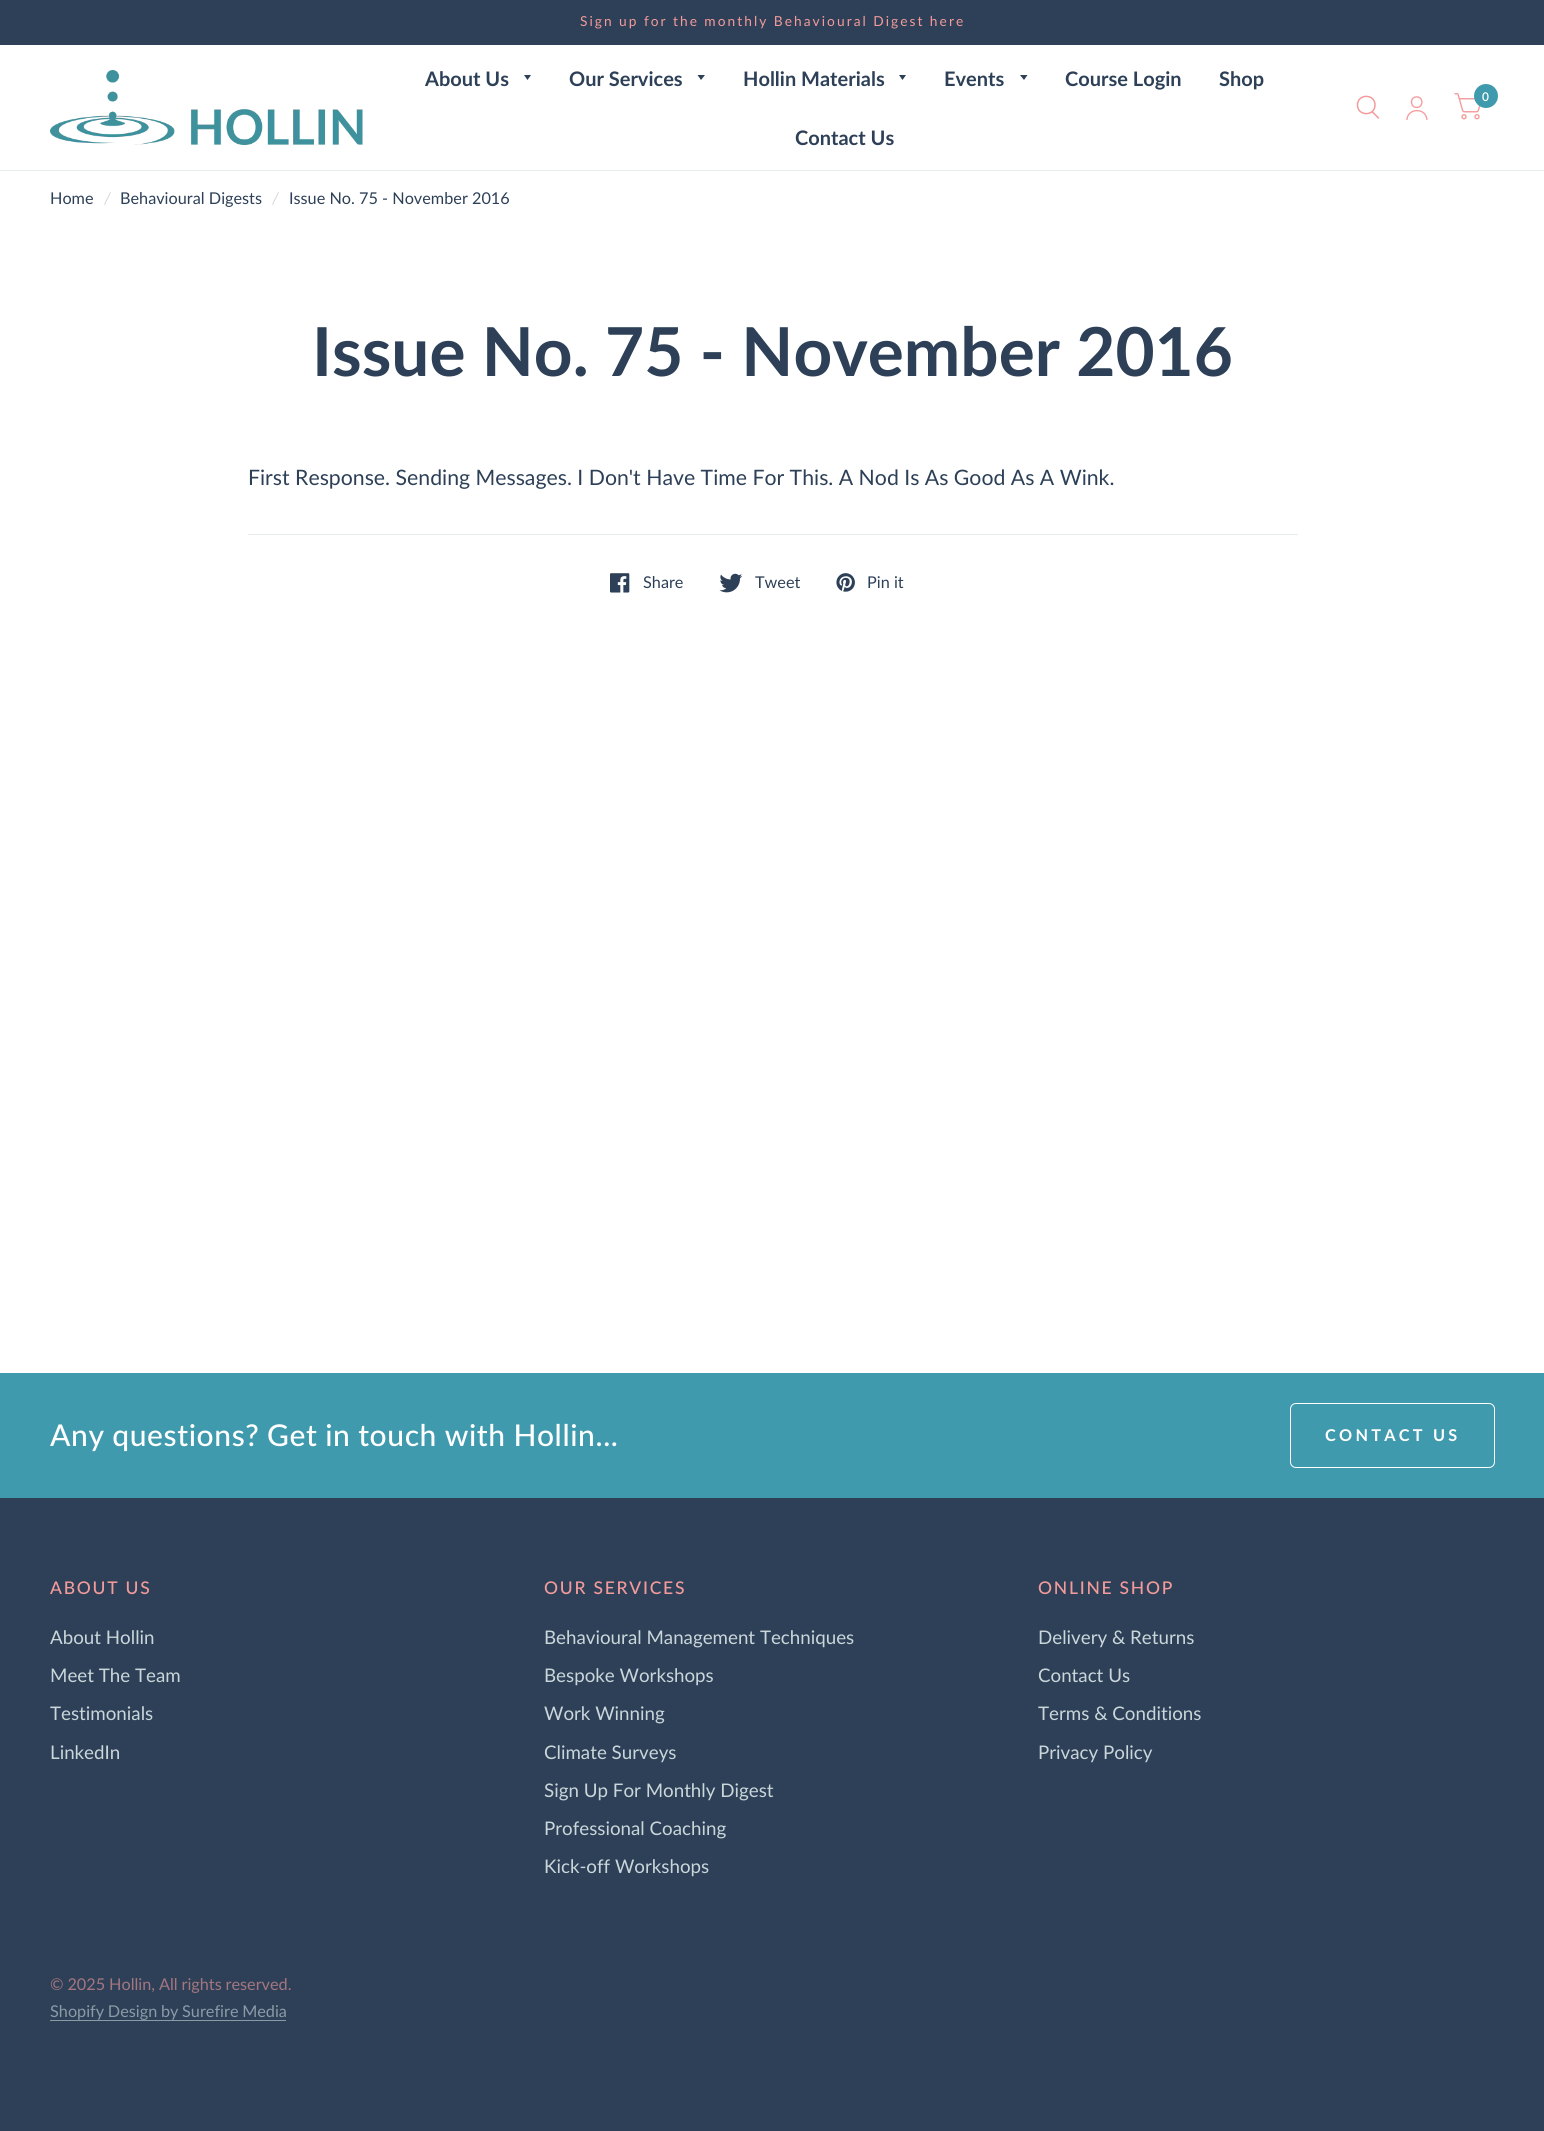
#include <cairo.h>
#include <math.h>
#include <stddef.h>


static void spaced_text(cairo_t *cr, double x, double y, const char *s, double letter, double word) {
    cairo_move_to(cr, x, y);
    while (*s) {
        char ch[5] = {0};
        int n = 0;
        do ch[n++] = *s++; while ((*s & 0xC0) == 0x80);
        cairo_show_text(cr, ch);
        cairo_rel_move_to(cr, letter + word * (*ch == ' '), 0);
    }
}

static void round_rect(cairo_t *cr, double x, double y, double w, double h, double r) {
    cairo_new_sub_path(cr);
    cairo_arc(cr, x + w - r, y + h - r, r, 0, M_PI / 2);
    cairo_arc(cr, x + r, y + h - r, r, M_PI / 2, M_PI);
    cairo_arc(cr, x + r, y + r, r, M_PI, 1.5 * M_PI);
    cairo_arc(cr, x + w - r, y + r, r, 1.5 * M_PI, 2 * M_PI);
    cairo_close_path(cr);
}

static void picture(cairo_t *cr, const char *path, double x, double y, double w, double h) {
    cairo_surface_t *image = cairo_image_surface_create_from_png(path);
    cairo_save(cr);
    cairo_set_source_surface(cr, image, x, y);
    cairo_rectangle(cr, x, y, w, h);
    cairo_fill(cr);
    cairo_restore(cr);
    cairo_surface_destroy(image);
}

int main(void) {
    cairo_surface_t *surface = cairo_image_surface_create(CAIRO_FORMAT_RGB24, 1544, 2131);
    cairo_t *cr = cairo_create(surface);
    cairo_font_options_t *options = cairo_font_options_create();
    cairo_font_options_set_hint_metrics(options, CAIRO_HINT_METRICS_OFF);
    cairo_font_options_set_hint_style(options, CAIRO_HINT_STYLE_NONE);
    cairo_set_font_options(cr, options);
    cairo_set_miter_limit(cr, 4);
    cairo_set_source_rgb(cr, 1, 1, 1);
    cairo_paint(cr);
    cairo_set_source_rgb(cr, 0.176, 0.251, 0.341);
    cairo_rectangle(cr, 0, 0, 1544, 45);
    cairo_fill(cr);
    cairo_select_font_face(cr, "Lato", CAIRO_FONT_SLANT_NORMAL, CAIRO_FONT_WEIGHT_NORMAL);
    cairo_set_font_size(cr, 13.75);
    cairo_set_source_rgb(cr, 0.953, 0.604, 0.608);
    spaced_text(cr, 580, 26, "Sign up for the monthly Behavioural Digest here", 2.05, -0.25);
    cairo_set_source_rgb(cr, 0.898, 0.922, 0.929);
    cairo_rectangle(cr, 0, 170, 1544, 1);
    cairo_fill(cr);
    picture(cr, "img1.png", 50, 70, 313, 75);
    cairo_select_font_face(cr, "Lato", CAIRO_FONT_SLANT_NORMAL, CAIRO_FONT_WEIGHT_BOLD);
    cairo_set_font_size(cr, 20);
    cairo_set_source_rgb(cr, 0.176, 0.251, 0.341);
    cairo_move_to(cr, 425, 86);
    cairo_show_text(cr, "About Us");
    cairo_new_path(cr);
    cairo_move_to(cr, 524, 75);
    cairo_line_to(cr, 531, 75);
    cairo_line_to(cr, 527.5, 80);
    cairo_close_path(cr);
    cairo_fill(cr);
    cairo_move_to(cr, 569, 86);
    cairo_show_text(cr, "Our Services");
    cairo_new_path(cr);
    cairo_move_to(cr, 697.5, 75);
    cairo_line_to(cr, 705, 75);
    cairo_line_to(cr, 701, 80);
    cairo_close_path(cr);
    cairo_fill(cr);
    cairo_move_to(cr, 743, 86);
    cairo_show_text(cr, "Hollin Materials");
    cairo_new_path(cr);
    cairo_move_to(cr, 899, 75);
    cairo_line_to(cr, 906, 75);
    cairo_line_to(cr, 902.5, 80);
    cairo_close_path(cr);
    cairo_fill(cr);
    cairo_move_to(cr, 944, 86);
    cairo_show_text(cr, "Events");
    cairo_new_path(cr);
    cairo_move_to(cr, 1020, 75);
    cairo_line_to(cr, 1027.5, 75);
    cairo_line_to(cr, 1024, 80);
    cairo_close_path(cr);
    cairo_fill(cr);
    cairo_move_to(cr, 1065, 86);
    cairo_show_text(cr, "Course Login");
    cairo_move_to(cr, 1219, 86);
    cairo_show_text(cr, "Shop");
    cairo_move_to(cr, 795, 145);
    cairo_show_text(cr, "Contact Us");
    cairo_new_path(cr);
    cairo_move_to(cr, 1372.5, 112);
    cairo_line_to(cr, 1378.5, 118);
    cairo_move_to(cr, 1375, 105);
    cairo_curve_to(cr, 1375, 116.5, 1357.5, 116.5, 1357.5, 105);
    cairo_curve_to(cr, 1357.5, 93.5, 1375, 93.5, 1375, 105);
    cairo_close_path(cr);
    cairo_set_source_rgb(cr, 0.953, 0.604, 0.608);
    cairo_set_line_width(cr, 1.5);
    cairo_set_line_cap(cr, CAIRO_LINE_CAP_ROUND);
    cairo_set_line_join(cr, CAIRO_LINE_JOIN_ROUND);
    cairo_stroke(cr);
    picture(cr, "img2.png", 1406, 96, 22, 24);
    picture(cr, "img3.png", 1454, 93, 27, 27);
    cairo_set_source_rgb(cr, 0.247, 0.604, 0.682);
    cairo_arc(cr, 1486, 96, 12, 0, 2 * M_PI);
    cairo_fill(cr);
    cairo_select_font_face(cr, "Lato SemiBold", CAIRO_FONT_SLANT_NORMAL, CAIRO_FONT_WEIGHT_NORMAL);
    cairo_set_font_size(cr, 12);
    cairo_set_source_rgb(cr, 1, 1, 1);
    cairo_move_to(cr, 1482, 101);
    cairo_show_text(cr, "0");
    cairo_select_font_face(cr, "Lato", CAIRO_FONT_SLANT_NORMAL, CAIRO_FONT_WEIGHT_NORMAL);
    cairo_set_font_size(cr, 16.25);
    cairo_set_source_rgb(cr, 0.176, 0.251, 0.341);
    cairo_move_to(cr, 50, 204);
    cairo_show_text(cr, "Home");
    cairo_select_font_face(cr, "Lato", CAIRO_FONT_SLANT_ITALIC, CAIRO_FONT_WEIGHT_NORMAL);
    cairo_set_source_rgb(cr, 0.835, 0.851, 0.867);
    cairo_move_to(cr, 104, 204);
    cairo_show_text(cr, "/");
    cairo_select_font_face(cr, "Lato", CAIRO_FONT_SLANT_NORMAL, CAIRO_FONT_WEIGHT_NORMAL);
    cairo_set_source_rgb(cr, 0.176, 0.251, 0.341);
    cairo_move_to(cr, 120, 204);
    cairo_show_text(cr, "Behavioural Digests");
    cairo_select_font_face(cr, "Lato", CAIRO_FONT_SLANT_ITALIC, CAIRO_FONT_WEIGHT_NORMAL);
    cairo_set_source_rgb(cr, 0.835, 0.851, 0.867);
    cairo_move_to(cr, 272, 204);
    cairo_show_text(cr, "/");
    cairo_select_font_face(cr, "Lato", CAIRO_FONT_SLANT_NORMAL, CAIRO_FONT_WEIGHT_NORMAL);
    cairo_set_source_rgb(cr, 0.176, 0.251, 0.341);
    cairo_move_to(cr, 289, 204);
    cairo_show_text(cr, "Issue No. 75 - November 2016");
    cairo_select_font_face(cr, "Lato", CAIRO_FONT_SLANT_NORMAL, CAIRO_FONT_WEIGHT_BOLD);
    cairo_set_font_size(cr, 67.5);
    cairo_move_to(cr, 312, 376);
    cairo_show_text(cr, "Issue No. 75 - November 2016");
    cairo_select_font_face(cr, "Lato", CAIRO_FONT_SLANT_NORMAL, CAIRO_FONT_WEIGHT_NORMAL);
    cairo_set_font_size(cr, 21.25);
    cairo_move_to(cr, 248, 485);
    cairo_show_text(cr, "First Response. Sending Messages. I Don't Have Time For This. A Nod Is As Good As A Wink.");
    cairo_set_source_rgb(cr, 0.898, 0.922, 0.929);
    cairo_rectangle(cr, 248, 534, 1050, 1);
    cairo_fill(cr);
    picture(cr, "img4.png", 610, 573, 20, 20);
    cairo_set_font_size(cr, 16.25);
    cairo_set_source_rgb(cr, 0.176, 0.251, 0.341);
    cairo_move_to(cr, 643, 588);
    cairo_show_text(cr, "Share");
    picture(cr, "img5.png", 719, 573, 24, 20);
    cairo_move_to(cr, 755, 588);
    cairo_show_text(cr, "Tweet");
    picture(cr, "img6.png", 836, 573, 19, 19);
    cairo_move_to(cr, 867, 588);
    cairo_show_text(cr, "Pin it");
    cairo_set_source_rgb(cr, 0.247, 0.604, 0.682);
    cairo_rectangle(cr, 0, 1373, 1544, 125);
    cairo_fill(cr);
    cairo_select_font_face(cr, "Lato Medium", CAIRO_FONT_SLANT_NORMAL, CAIRO_FONT_WEIGHT_NORMAL);
    cairo_set_font_size(cr, 30);
    cairo_set_source_rgb(cr, 1, 1, 1);
    spaced_text(cr, 50, 1446, "Any questions? Get in touch with Hollin...", 0.6, -0.5);
    round_rect(cr, 1290.5, 1403.5, 204, 64, 5.5);
    cairo_set_line_width(cr, 1);
    cairo_set_line_cap(cr, CAIRO_LINE_CAP_BUTT);
    cairo_set_line_join(cr, CAIRO_LINE_JOIN_MITER);
    cairo_stroke(cr);
    cairo_select_font_face(cr, "Lato", CAIRO_FONT_SLANT_NORMAL, CAIRO_FONT_WEIGHT_BOLD);
    cairo_set_font_size(cr, 16.25);
    spaced_text(cr, 1325, 1441, "CONTACT US", 3.25, 0);
    cairo_set_source_rgb(cr, 0.176, 0.251, 0.341);
    cairo_rectangle(cr, 0, 1498, 1544, 633);
    cairo_fill(cr);
    cairo_select_font_face(cr, "Lato Medium", CAIRO_FONT_SLANT_NORMAL, CAIRO_FONT_WEIGHT_NORMAL);
    cairo_set_font_size(cr, 17.5);
    cairo_set_source_rgb(cr, 0.953, 0.604, 0.608);
    spaced_text(cr, 50, 1594, "ABOUT US", 1.75, 0);
    cairo_select_font_face(cr, "Lato", CAIRO_FONT_SLANT_NORMAL, CAIRO_FONT_WEIGHT_NORMAL);
    cairo_set_font_size(cr, 18.75);
    cairo_set_source_rgb(cr, 0.792, 0.839, 0.855);
    cairo_move_to(cr, 50, 1644);
    cairo_show_text(cr, "About Hollin");
    cairo_move_to(cr, 50, 1682);
    cairo_show_text(cr, "Meet The Team");
    cairo_move_to(cr, 50, 1720);
    cairo_show_text(cr, "Testimonials");
    cairo_move_to(cr, 50, 1759);
    cairo_show_text(cr, "LinkedIn");
    cairo_select_font_face(cr, "Lato Medium", CAIRO_FONT_SLANT_NORMAL, CAIRO_FONT_WEIGHT_NORMAL);
    cairo_set_font_size(cr, 17.5);
    cairo_set_source_rgb(cr, 0.953, 0.604, 0.608);
    spaced_text(cr, 544, 1594, "OUR SERVICES", 1.75, 0);
    cairo_select_font_face(cr, "Lato", CAIRO_FONT_SLANT_NORMAL, CAIRO_FONT_WEIGHT_NORMAL);
    cairo_set_font_size(cr, 18.75);
    cairo_set_source_rgb(cr, 0.792, 0.839, 0.855);
    cairo_move_to(cr, 544, 1644);
    cairo_show_text(cr, "Behavioural Management Techniques");
    cairo_move_to(cr, 544, 1682);
    cairo_show_text(cr, "Bespoke Workshops");
    cairo_move_to(cr, 544, 1720);
    cairo_show_text(cr, "Work Winning");
    cairo_move_to(cr, 544, 1759);
    cairo_show_text(cr, "Climate Surveys");
    cairo_move_to(cr, 544, 1797);
    cairo_show_text(cr, "Sign Up For Monthly Digest");
    cairo_move_to(cr, 544, 1835);
    cairo_show_text(cr, "Professional Coaching");
    cairo_move_to(cr, 544, 1873);
    cairo_show_text(cr, "Kick-off Workshops");
    cairo_select_font_face(cr, "Lato Medium", CAIRO_FONT_SLANT_NORMAL, CAIRO_FONT_WEIGHT_NORMAL);
    cairo_set_font_size(cr, 17.5);
    cairo_set_source_rgb(cr, 0.953, 0.604, 0.608);
    spaced_text(cr, 1038, 1594, "ONLINE SHOP", 1.75, 0);
    cairo_select_font_face(cr, "Lato", CAIRO_FONT_SLANT_NORMAL, CAIRO_FONT_WEIGHT_NORMAL);
    cairo_set_font_size(cr, 18.75);
    cairo_set_source_rgb(cr, 0.792, 0.839, 0.855);
    cairo_move_to(cr, 1038, 1644);
    cairo_show_text(cr, "Delivery & Returns");
    cairo_move_to(cr, 1038, 1682);
    cairo_show_text(cr, "Contact Us");
    cairo_move_to(cr, 1038, 1720);
    cairo_show_text(cr, "Terms & Conditions");
    cairo_move_to(cr, 1038, 1759);
    cairo_show_text(cr, "Privacy Policy");
    cairo_set_font_size(cr, 16.25);
    cairo_set_source_rgb(cr, 0.643, 0.463, 0.502);
    spaced_text(cr, 50, 1990, "© 2025 Hollin, All rights reserved.", 0, -0.25);
    cairo_set_source_rgb(cr, 0.545, 0.604, 0.651);
    spaced_text(cr, 50, 2017, "Shopify Design by Surefire Media", 0, -0.5);
    cairo_rectangle(cr, 50, 2020, 236, 1);
    cairo_fill(cr);
    cairo_surface_write_to_png(surface, "page.png");
    cairo_font_options_destroy(options);
    cairo_destroy(cr);
    cairo_surface_destroy(surface);
    return 0;
}
